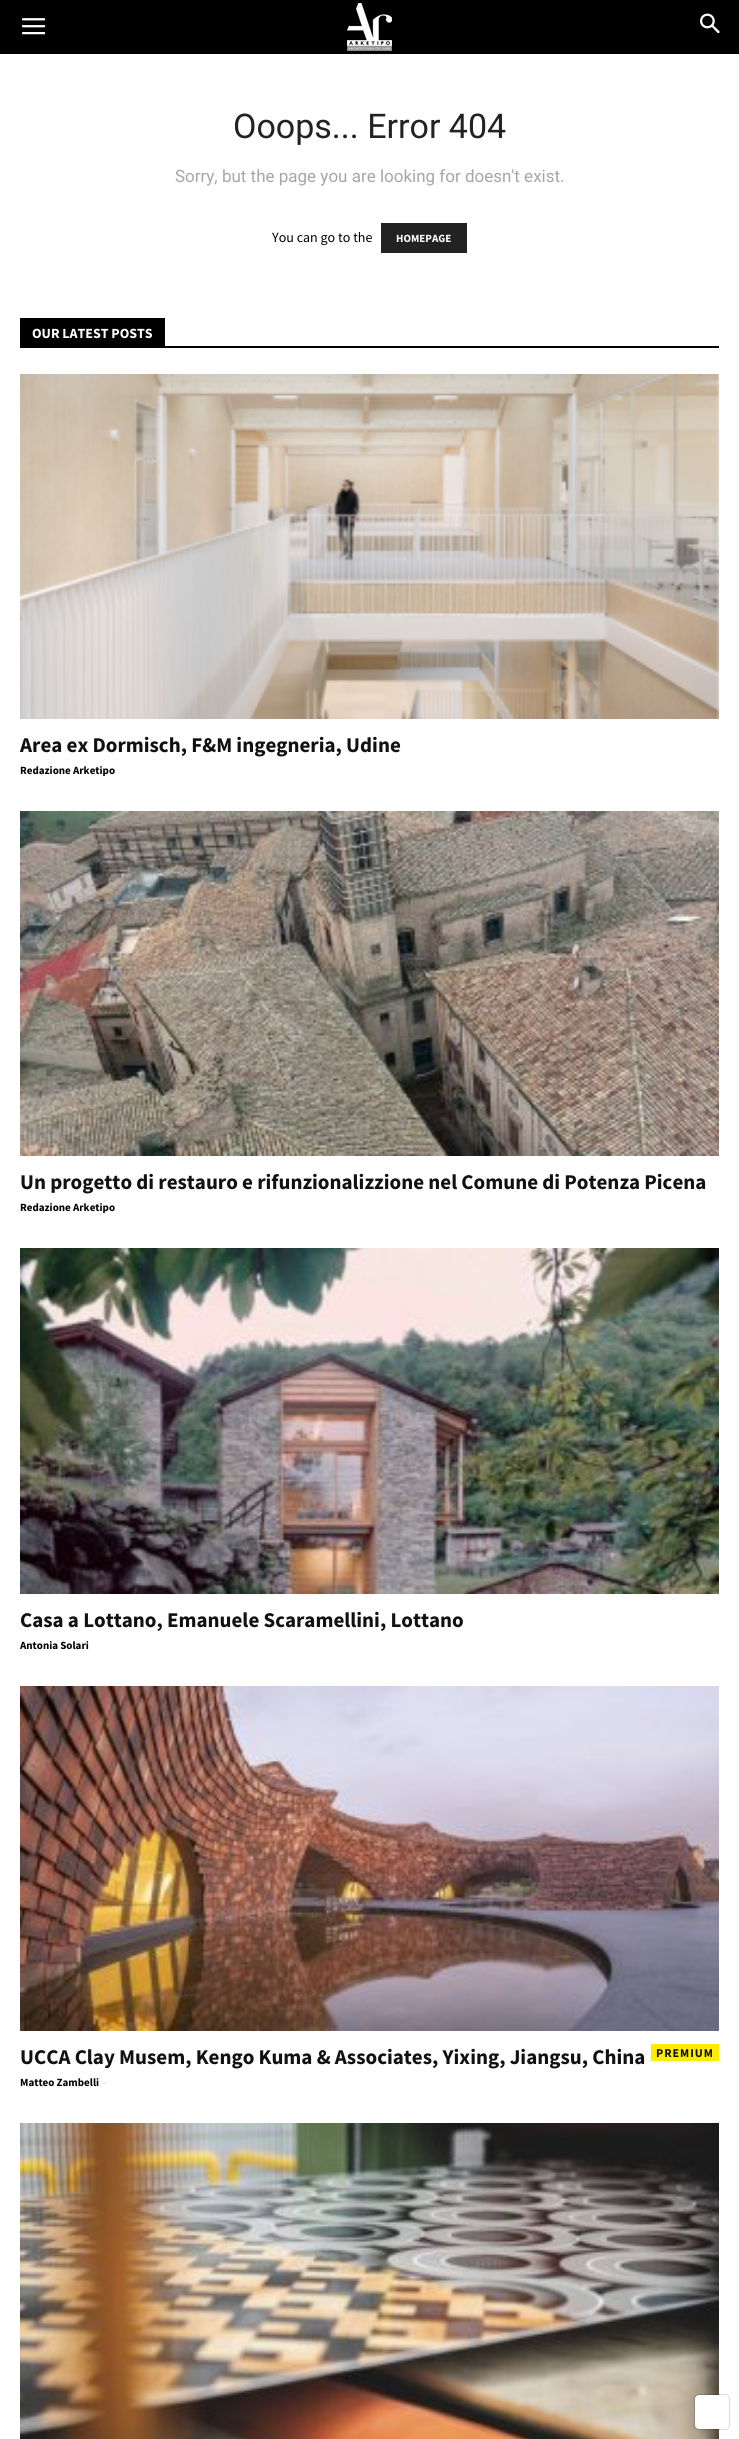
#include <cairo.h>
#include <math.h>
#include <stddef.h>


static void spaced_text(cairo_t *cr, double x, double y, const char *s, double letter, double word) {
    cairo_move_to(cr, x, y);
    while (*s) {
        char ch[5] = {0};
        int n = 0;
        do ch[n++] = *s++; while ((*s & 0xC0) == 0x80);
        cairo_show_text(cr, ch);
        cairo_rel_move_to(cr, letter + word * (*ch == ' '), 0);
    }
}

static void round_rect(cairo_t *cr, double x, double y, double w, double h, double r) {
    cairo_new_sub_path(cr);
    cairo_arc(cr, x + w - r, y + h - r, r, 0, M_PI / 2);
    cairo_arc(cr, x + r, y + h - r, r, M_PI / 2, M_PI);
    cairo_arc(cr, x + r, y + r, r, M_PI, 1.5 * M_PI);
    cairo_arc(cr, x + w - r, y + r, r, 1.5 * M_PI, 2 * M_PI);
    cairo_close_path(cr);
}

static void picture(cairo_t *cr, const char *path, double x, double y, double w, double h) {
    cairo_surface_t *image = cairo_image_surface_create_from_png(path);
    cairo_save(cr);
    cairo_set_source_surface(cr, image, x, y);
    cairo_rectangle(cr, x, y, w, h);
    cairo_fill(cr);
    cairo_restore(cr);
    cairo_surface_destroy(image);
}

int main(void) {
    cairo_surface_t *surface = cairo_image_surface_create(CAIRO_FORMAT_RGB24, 739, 2439);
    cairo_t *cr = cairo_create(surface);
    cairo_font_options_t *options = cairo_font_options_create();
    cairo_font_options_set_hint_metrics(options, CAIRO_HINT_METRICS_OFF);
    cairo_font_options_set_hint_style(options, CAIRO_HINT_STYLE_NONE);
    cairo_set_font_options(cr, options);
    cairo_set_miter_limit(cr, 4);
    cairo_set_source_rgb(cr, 1, 1, 1);
    cairo_paint(cr);
    cairo_set_source_rgb(cr, 0, 0, 0);
    cairo_rectangle(cr, 0, 0, 739, 54);
    cairo_fill(cr);
    picture(cr, "img1.png", 22, 18, 24, 17);
    picture(cr, "img2.png", 347, 3, 45, 48);
    picture(cr, "img3.png", 700, 13, 20, 21);
    cairo_select_font_face(cr, "Roboto", CAIRO_FONT_SLANT_NORMAL, CAIRO_FONT_WEIGHT_NORMAL);
    cairo_set_font_size(cr, 34);
    cairo_set_source_rgb(cr, 0.133, 0.133, 0.133);
    cairo_move_to(cr, 233, 138);
    cairo_show_text(cr, "Ooops... Error 404");
    cairo_set_font_size(cr, 17);
    cairo_set_source_rgb(cr, 0.651, 0.651, 0.651);
    cairo_move_to(cr, 175, 182);
    cairo_show_text(cr, "Sorry, but the page you are looking for doesn't exist.");
    cairo_select_font_face(cr, "Source Sans Pro", CAIRO_FONT_SLANT_NORMAL, CAIRO_FONT_WEIGHT_NORMAL);
    cairo_set_font_size(cr, 14);
    cairo_set_source_rgb(cr, 0, 0, 0);
    cairo_move_to(cr, 272, 242);
    cairo_show_text(cr, "You can go to the");
    cairo_set_source_rgb(cr, 0.133, 0.133, 0.133);
    cairo_rectangle(cr, 381, 223, 86, 30);
    cairo_fill(cr);
    cairo_select_font_face(cr, "Source Sans Pro", CAIRO_FONT_SLANT_NORMAL, CAIRO_FONT_WEIGHT_BOLD);
    cairo_set_font_size(cr, 11);
    cairo_set_source_rgb(cr, 1, 1, 1);
    cairo_move_to(cr, 396, 242);
    cairo_show_text(cr, "HOMEPAGE");
    cairo_set_source_rgb(cr, 0, 0, 0);
    cairo_rectangle(cr, 20, 346, 699, 2);
    cairo_fill(cr);
    cairo_rectangle(cr, 20, 318, 145, 28);
    cairo_fill(cr);
    cairo_set_font_size(cr, 14);
    cairo_set_source_rgb(cr, 1, 1, 1);
    cairo_move_to(cr, 32, 338);
    cairo_show_text(cr, "OUR LATEST POSTS");
    picture(cr, "img4.png", 20, 374, 699, 345);
    cairo_set_font_size(cr, 21);
    cairo_set_source_rgb(cr, 0.067, 0.067, 0.067);
    cairo_move_to(cr, 20, 752);
    cairo_show_text(cr, "Area ex Dormisch, F&M ingegneria, Udine");
    cairo_set_font_size(cr, 11);
    cairo_set_source_rgb(cr, 0, 0, 0);
    cairo_move_to(cr, 20, 774);
    cairo_show_text(cr, "Redazione Arketipo");
    picture(cr, "img5.png", 20, 811, 699, 345);
    cairo_set_font_size(cr, 21);
    cairo_set_source_rgb(cr, 0.067, 0.067, 0.067);
    cairo_move_to(cr, 20, 1189);
    cairo_show_text(cr, "Un progetto di restauro e rifunzionalizzione nel Comune di Potenza Picena");
    cairo_set_font_size(cr, 11);
    cairo_set_source_rgb(cr, 0, 0, 0);
    cairo_move_to(cr, 20, 1211);
    cairo_show_text(cr, "Redazione Arketipo");
    picture(cr, "img6.png", 20, 1248, 699, 346);
    cairo_set_font_size(cr, 21);
    cairo_set_source_rgb(cr, 0.067, 0.067, 0.067);
    cairo_move_to(cr, 20, 1627);
    cairo_show_text(cr, "Casa a Lottano, Emanuele Scaramellini, Lottano");
    cairo_set_font_size(cr, 11);
    cairo_set_source_rgb(cr, 0, 0, 0);
    cairo_move_to(cr, 20, 1649);
    cairo_show_text(cr, "Antonia Solari");
    picture(cr, "img7.png", 20, 1686, 699, 345);
    cairo_set_font_size(cr, 21);
    cairo_set_source_rgb(cr, 0.067, 0.067, 0.067);
    cairo_move_to(cr, 20, 2064);
    cairo_show_text(cr, "UCCA Clay Musem, Kengo Kuma & Associates, Yixing, Jiangsu, China");
    cairo_set_source_rgb(cr, 1, 0.929, 0);
    cairo_rectangle(cr, 651, 2044, 68, 17);
    cairo_fill(cr);
    cairo_set_font_size(cr, 12);
    cairo_set_source_rgb(cr, 0.067, 0.067, 0.067);
    spaced_text(cr, 656, 2057, "PREMIUM", 1, 0);
    cairo_set_font_size(cr, 11);
    cairo_set_source_rgb(cr, 0, 0, 0);
    cairo_move_to(cr, 20, 2086);
    cairo_show_text(cr, "Matteo Zambelli");
    cairo_select_font_face(cr, "Source Sans Pro", CAIRO_FONT_SLANT_NORMAL, CAIRO_FONT_WEIGHT_NORMAL);
    cairo_set_source_rgb(cr, 0.8, 0.8, 0.8);
    cairo_move_to(cr, 103, 2086);
    cairo_show_text(cr, "-");
    picture(cr, "img8.png", 20, 2123, 699, 316);
    round_rect(cr, 694.5, 2394.5, 35, 35, 4.5);
    cairo_set_source_rgba(cr, 0, 0, 0, 0.15);
    cairo_set_line_width(cr, 1);
    cairo_stroke(cr);
    cairo_set_source_rgb(cr, 1, 1, 1);
    round_rect(cr, 695, 2395, 34, 34, 4);
    cairo_fill(cr);
    cairo_surface_write_to_png(surface, "page.png");
    cairo_font_options_destroy(options);
    cairo_destroy(cr);
    cairo_surface_destroy(surface);
    return 0;
}
